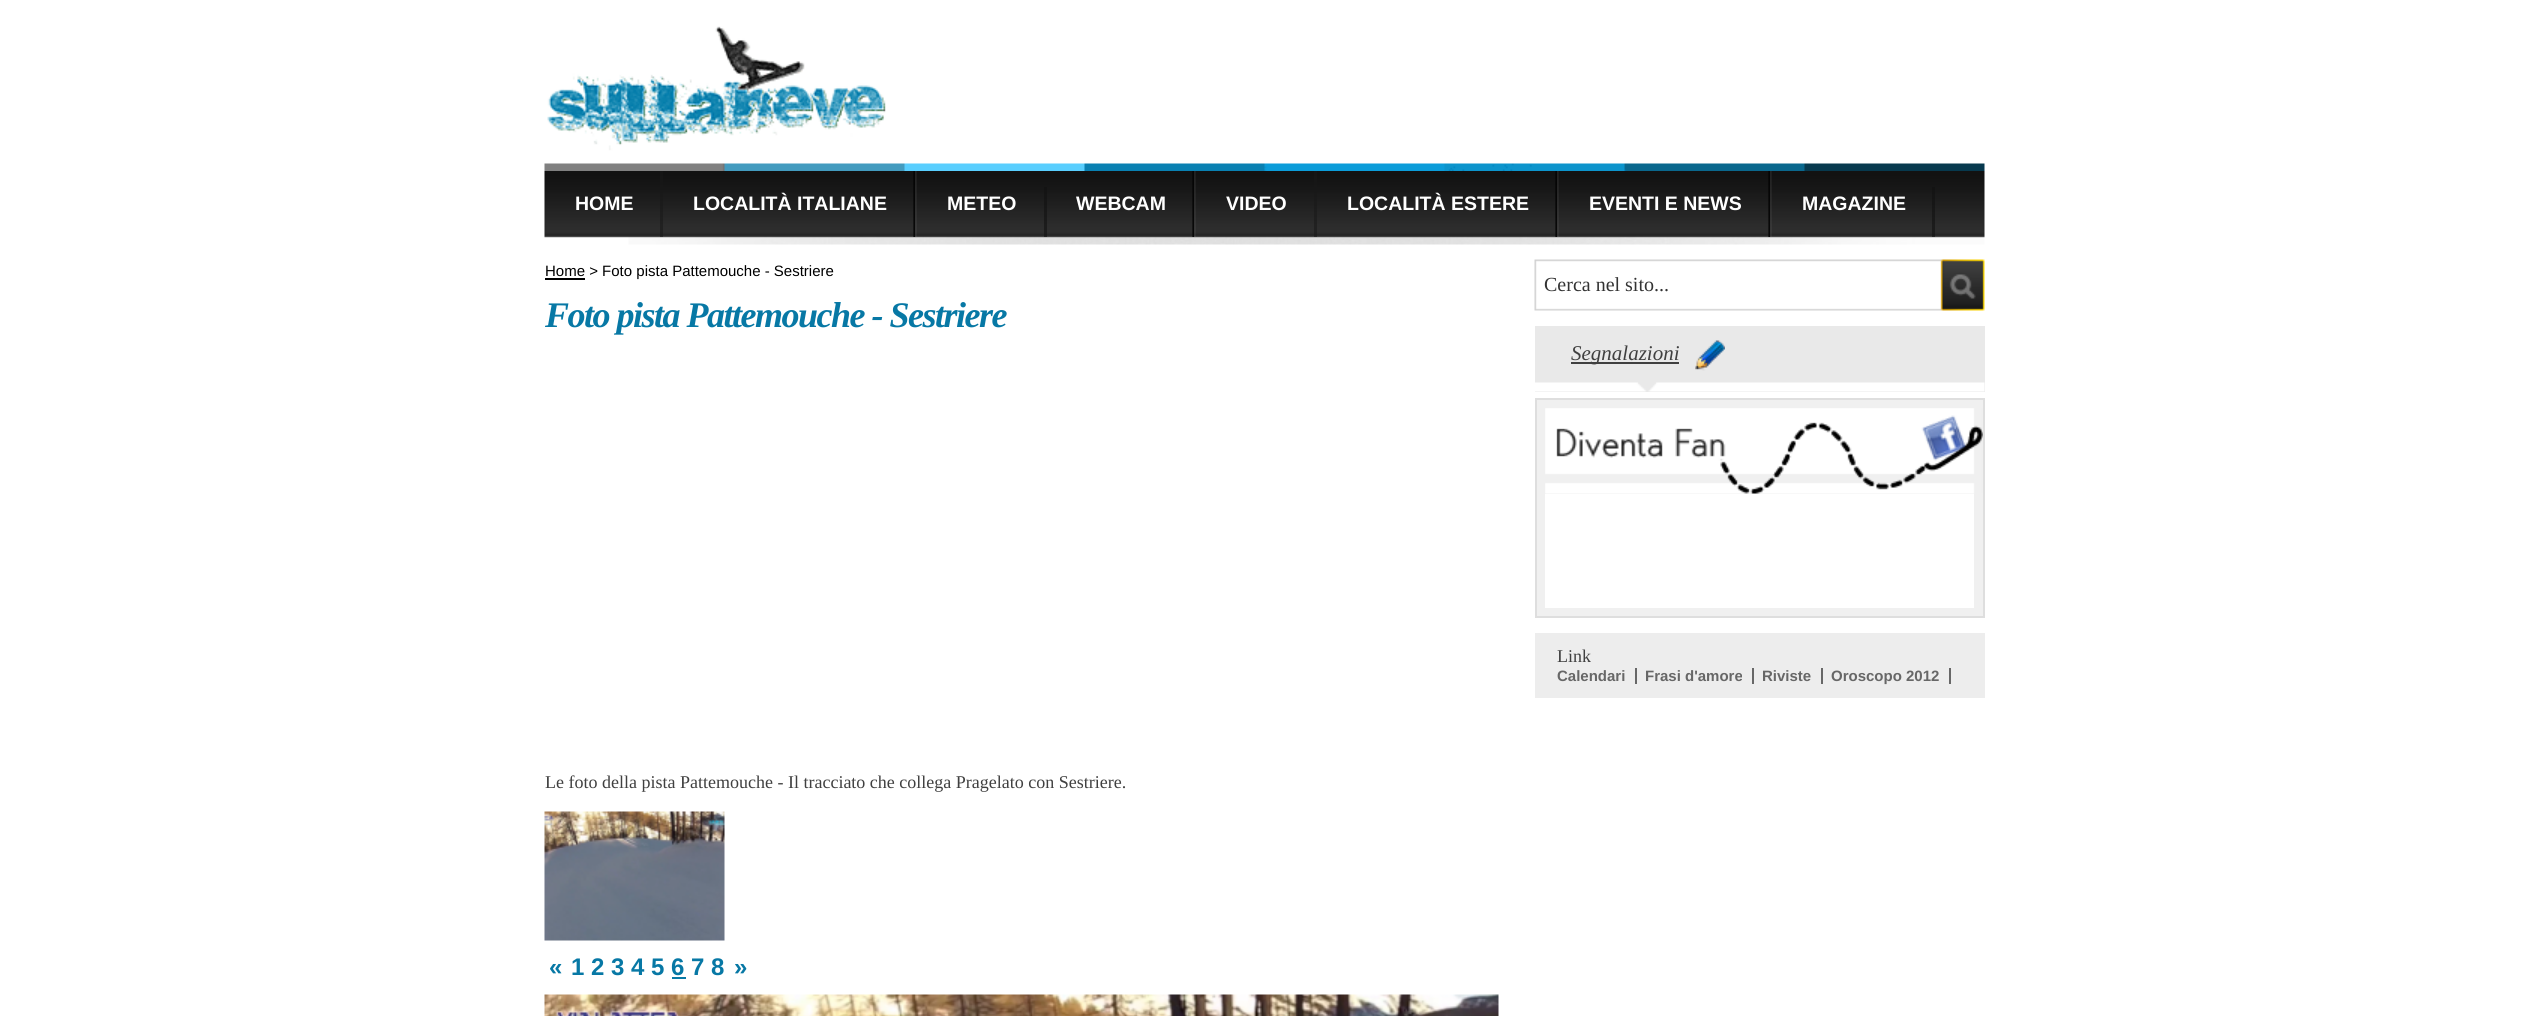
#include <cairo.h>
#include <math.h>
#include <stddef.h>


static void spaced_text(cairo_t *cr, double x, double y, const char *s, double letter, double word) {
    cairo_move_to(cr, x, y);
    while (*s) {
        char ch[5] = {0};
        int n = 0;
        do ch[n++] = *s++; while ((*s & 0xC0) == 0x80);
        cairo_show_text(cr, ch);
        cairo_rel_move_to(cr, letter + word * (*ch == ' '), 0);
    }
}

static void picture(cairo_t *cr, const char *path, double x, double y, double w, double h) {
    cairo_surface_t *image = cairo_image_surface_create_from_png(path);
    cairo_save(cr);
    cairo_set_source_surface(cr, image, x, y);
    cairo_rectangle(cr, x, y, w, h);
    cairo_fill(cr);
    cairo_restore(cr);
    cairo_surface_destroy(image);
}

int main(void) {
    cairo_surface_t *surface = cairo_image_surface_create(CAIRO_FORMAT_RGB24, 2528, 1016);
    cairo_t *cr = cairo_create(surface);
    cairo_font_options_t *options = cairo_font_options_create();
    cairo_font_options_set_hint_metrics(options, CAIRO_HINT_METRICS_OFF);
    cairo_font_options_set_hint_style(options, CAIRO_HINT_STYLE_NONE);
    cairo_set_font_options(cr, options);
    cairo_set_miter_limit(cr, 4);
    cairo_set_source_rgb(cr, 1, 1, 1);
    cairo_paint(cr);
    picture(cr, "img1.png", 544, 26, 1441, 145);
    picture(cr, "img2.png", 544, 171, 1441, 74);
    cairo_set_source_rgba(cr, 0.094, 0.094, 0.094, 0.55);
    cairo_rectangle(cr, 660, 171, 3, 66);
    cairo_fill(cr);
    cairo_select_font_face(cr, "Liberation Sans", CAIRO_FONT_SLANT_NORMAL, CAIRO_FONT_WEIGHT_BOLD);
    cairo_set_font_size(cr, 19.5);
    cairo_set_source_rgb(cr, 1, 1, 1);
    cairo_move_to(cr, 575, 210);
    cairo_show_text(cr, "HOME");
    picture(cr, "img3.png", 913, 171, 4, 66);
    cairo_move_to(cr, 693, 210);
    cairo_show_text(cr, "LOCALITÀ ITALIANE");
    cairo_set_source_rgba(cr, 0.071, 0.071, 0.071, 0.6);
    cairo_rectangle(cr, 1044, 187, 3, 50);
    cairo_fill(cr);
    cairo_set_source_rgb(cr, 1, 1, 1);
    cairo_move_to(cr, 947, 210);
    cairo_show_text(cr, "METEO");
    picture(cr, "img4.png", 1192, 171, 4, 66);
    cairo_move_to(cr, 1076, 210);
    cairo_show_text(cr, "WEBCAM");
    cairo_set_source_rgba(cr, 0.094, 0.094, 0.094, 0.55);
    cairo_rectangle(cr, 1314, 171, 3, 66);
    cairo_fill(cr);
    cairo_set_source_rgb(cr, 1, 1, 1);
    cairo_move_to(cr, 1226, 210);
    cairo_show_text(cr, "VIDEO");
    picture(cr, "img3.png", 1555, 171, 4, 66);
    cairo_move_to(cr, 1347, 210);
    cairo_show_text(cr, "LOCALITÀ ESTERE");
    picture(cr, "img5.png", 1768, 171, 4, 66);
    cairo_move_to(cr, 1589, 210);
    cairo_show_text(cr, "EVENTI E NEWS");
    cairo_set_source_rgba(cr, 0.071, 0.071, 0.071, 0.6);
    cairo_rectangle(cr, 1932, 187, 3, 50);
    cairo_fill(cr);
    cairo_set_source_rgb(cr, 1, 1, 1);
    cairo_move_to(cr, 1802, 210);
    cairo_show_text(cr, "MAGAZINE");
    cairo_set_source_rgb(cr, 0, 0, 0);
    cairo_rectangle(cr, 545, 278, 40, 2);
    cairo_fill(cr);
    cairo_select_font_face(cr, "Liberation Sans", CAIRO_FONT_SLANT_NORMAL, CAIRO_FONT_WEIGHT_NORMAL);
    cairo_set_font_size(cr, 15);
    cairo_move_to(cr, 545, 276);
    cairo_show_text(cr, "Home > Foto pista Pattemouche - Sestriere");
    cairo_select_font_face(cr, "Liberation Serif", CAIRO_FONT_SLANT_ITALIC, CAIRO_FONT_WEIGHT_BOLD);
    cairo_set_font_size(cr, 36);
    cairo_set_source_rgb(cr, 0.031, 0.471, 0.647);
    spaced_text(cr, 545, 327, "Foto pista Pattemouche - Sestriere", -1.5, 0);
    cairo_select_font_face(cr, "Liberation Serif", CAIRO_FONT_SLANT_NORMAL, CAIRO_FONT_WEIGHT_NORMAL);
    cairo_set_font_size(cr, 18);
    cairo_set_source_rgb(cr, 0.251, 0.251, 0.251);
    cairo_move_to(cr, 545, 788);
    cairo_show_text(cr, "Le foto della pista Pattemouche - Il tracciato che collega Pragelato con Sestriere.");
    picture(cr, "img6.png", 544, 811, 181, 130);
    cairo_select_font_face(cr, "Liberation Sans", CAIRO_FONT_SLANT_NORMAL, CAIRO_FONT_WEIGHT_BOLD);
    cairo_set_font_size(cr, 24);
    cairo_set_source_rgb(cr, 0.031, 0.471, 0.647);
    cairo_move_to(cr, 549, 975);
    cairo_show_text(cr, "«");
    cairo_move_to(cr, 571, 975);
    cairo_show_text(cr, "1 2 3 4 5 6 7 8");
    cairo_rectangle(cr, 672, 977, 14, 2);
    cairo_fill(cr);
    cairo_move_to(cr, 734, 975);
    cairo_show_text(cr, "»");
    picture(cr, "img7.png", 544, 994, 955, 22);
    picture(cr, "img8.png", 1534, 259, 451, 52);
    cairo_select_font_face(cr, "Liberation Serif", CAIRO_FONT_SLANT_NORMAL, CAIRO_FONT_WEIGHT_NORMAL);
    cairo_set_font_size(cr, 20);
    cairo_set_source_rgb(cr, 0.2, 0.2, 0.2);
    cairo_move_to(cr, 1544, 291);
    cairo_show_text(cr, "Cerca nel sito...");
    cairo_set_source_rgb(cr, 0.914, 0.914, 0.914);
    cairo_rectangle(cr, 1535, 326, 450, 66);
    cairo_fill(cr);
    picture(cr, "img9.png", 1535, 382, 450, 10);
    cairo_set_source_rgb(cr, 0.251, 0.251, 0.251);
    cairo_rectangle(cr, 1571, 362, 108, 2);
    cairo_fill(cr);
    cairo_select_font_face(cr, "Liberation Serif", CAIRO_FONT_SLANT_ITALIC, CAIRO_FONT_WEIGHT_NORMAL);
    cairo_set_font_size(cr, 21);
    cairo_move_to(cr, 1571, 360);
    cairo_show_text(cr, "Segnalazioni");
    picture(cr, "img10.png", 1695, 340, 30, 31);
    cairo_set_source_rgb(cr, 0.941, 0.941, 0.941);
    cairo_rectangle(cr, 1537, 400, 446, 216);
    cairo_fill(cr);
    picture(cr, "img11.png", 1545, 408, 438, 86);
    cairo_rectangle(cr, 1536, 399, 448, 218);
    cairo_set_source_rgb(cr, 0.871, 0.871, 0.871);
    cairo_stroke(cr);
    cairo_set_source_rgb(cr, 1, 1, 1);
    cairo_rectangle(cr, 1545, 494, 429, 114);
    cairo_fill(cr);
    cairo_set_source_rgb(cr, 0.929, 0.929, 0.929);
    cairo_rectangle(cr, 1535, 633, 450, 65);
    cairo_fill(cr);
    cairo_select_font_face(cr, "Liberation Serif", CAIRO_FONT_SLANT_NORMAL, CAIRO_FONT_WEIGHT_NORMAL);
    cairo_set_font_size(cr, 18);
    cairo_set_source_rgb(cr, 0.251, 0.251, 0.251);
    cairo_move_to(cr, 1557, 662);
    cairo_show_text(cr, "Link");
    cairo_select_font_face(cr, "Liberation Sans", CAIRO_FONT_SLANT_NORMAL, CAIRO_FONT_WEIGHT_BOLD);
    cairo_set_font_size(cr, 15);
    cairo_set_source_rgb(cr, 0.404, 0.404, 0.404);
    cairo_move_to(cr, 1557, 681);
    cairo_show_text(cr, "Calendari");
    cairo_rectangle(cr, 1635, 668, 2, 16);
    cairo_fill(cr);
    cairo_move_to(cr, 1645, 681);
    cairo_show_text(cr, "Frasi d'amore");
    cairo_rectangle(cr, 1752, 668, 2, 16);
    cairo_fill(cr);
    cairo_move_to(cr, 1762, 681);
    cairo_show_text(cr, "Riviste");
    cairo_rectangle(cr, 1821, 668, 2, 16);
    cairo_fill(cr);
    cairo_move_to(cr, 1831, 681);
    cairo_show_text(cr, "Oroscopo 2012");
    cairo_rectangle(cr, 1949, 668, 2, 16);
    cairo_fill(cr);
    cairo_surface_write_to_png(surface, "page.png");
    cairo_font_options_destroy(options);
    cairo_destroy(cr);
    cairo_surface_destroy(surface);
    return 0;
}
